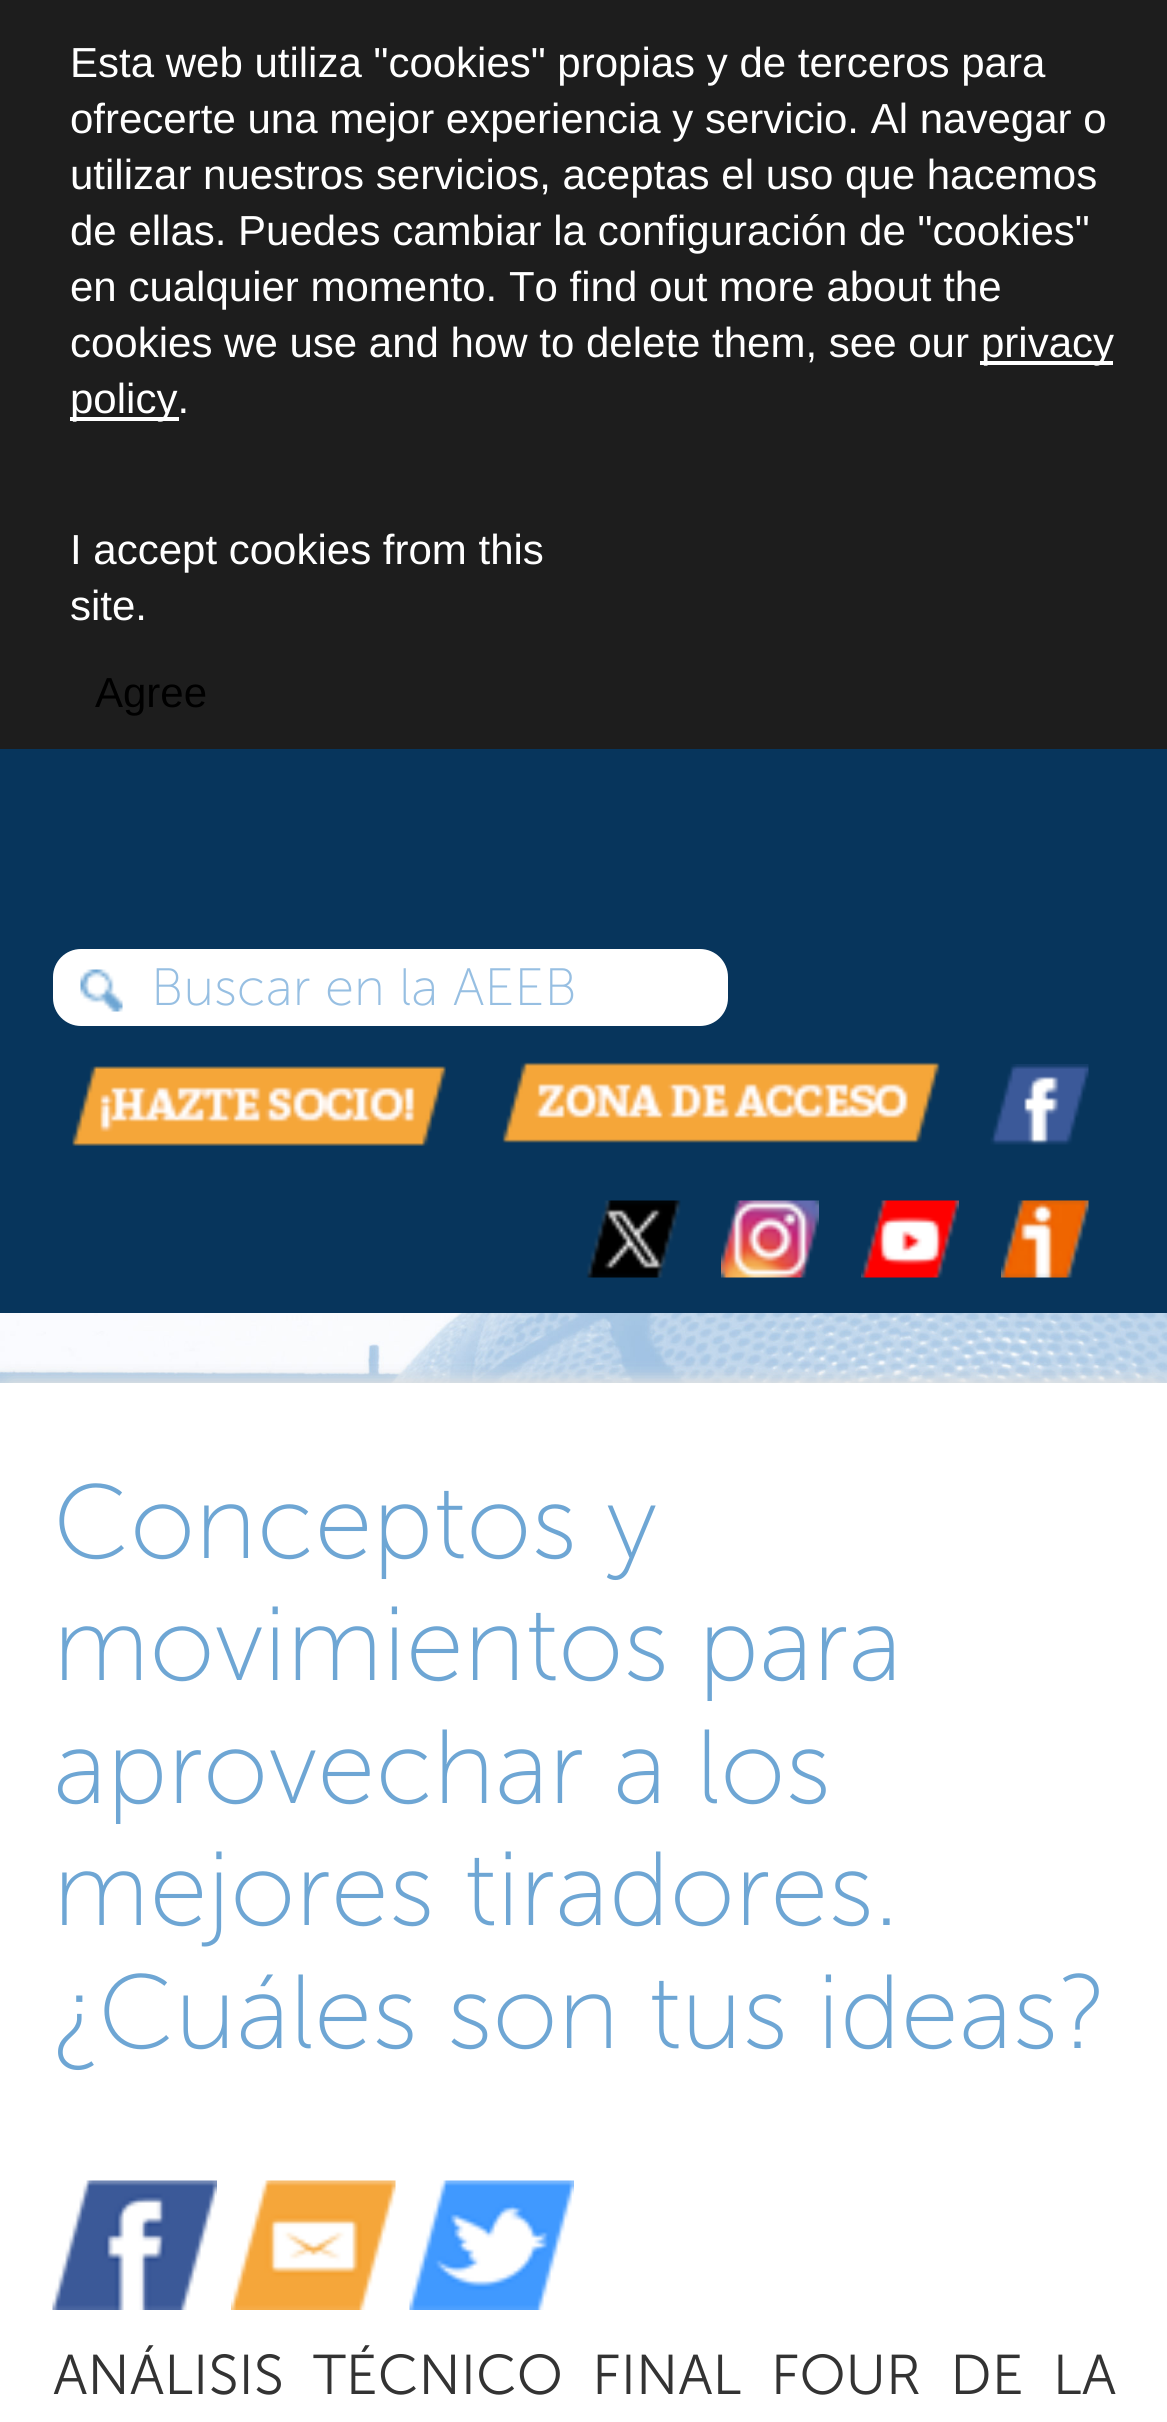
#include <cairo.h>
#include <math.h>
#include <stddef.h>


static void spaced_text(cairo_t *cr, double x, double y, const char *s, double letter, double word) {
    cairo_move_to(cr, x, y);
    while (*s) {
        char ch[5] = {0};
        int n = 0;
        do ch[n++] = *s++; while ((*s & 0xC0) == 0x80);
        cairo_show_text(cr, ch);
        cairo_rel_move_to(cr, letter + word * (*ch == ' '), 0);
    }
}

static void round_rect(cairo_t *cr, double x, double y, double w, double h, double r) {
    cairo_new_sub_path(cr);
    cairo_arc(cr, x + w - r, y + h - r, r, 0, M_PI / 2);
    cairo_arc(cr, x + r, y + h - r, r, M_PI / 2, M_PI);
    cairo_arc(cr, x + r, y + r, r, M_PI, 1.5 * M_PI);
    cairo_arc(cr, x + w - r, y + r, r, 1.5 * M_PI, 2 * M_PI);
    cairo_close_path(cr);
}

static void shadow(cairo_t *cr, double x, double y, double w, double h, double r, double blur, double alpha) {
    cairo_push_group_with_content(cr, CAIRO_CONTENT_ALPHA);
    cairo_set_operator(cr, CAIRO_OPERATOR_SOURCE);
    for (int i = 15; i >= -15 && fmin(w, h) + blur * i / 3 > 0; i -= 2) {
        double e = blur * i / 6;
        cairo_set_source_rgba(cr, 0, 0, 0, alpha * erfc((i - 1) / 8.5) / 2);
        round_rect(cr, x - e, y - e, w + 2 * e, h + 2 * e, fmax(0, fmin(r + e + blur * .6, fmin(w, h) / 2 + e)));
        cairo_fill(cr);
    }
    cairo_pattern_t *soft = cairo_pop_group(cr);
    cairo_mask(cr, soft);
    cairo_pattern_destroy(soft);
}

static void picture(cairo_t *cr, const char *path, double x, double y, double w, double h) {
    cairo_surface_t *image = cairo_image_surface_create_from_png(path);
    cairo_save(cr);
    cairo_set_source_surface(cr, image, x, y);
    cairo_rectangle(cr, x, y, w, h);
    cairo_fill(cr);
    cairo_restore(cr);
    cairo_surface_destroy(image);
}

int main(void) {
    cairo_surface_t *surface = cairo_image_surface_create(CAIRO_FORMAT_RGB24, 1167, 2422);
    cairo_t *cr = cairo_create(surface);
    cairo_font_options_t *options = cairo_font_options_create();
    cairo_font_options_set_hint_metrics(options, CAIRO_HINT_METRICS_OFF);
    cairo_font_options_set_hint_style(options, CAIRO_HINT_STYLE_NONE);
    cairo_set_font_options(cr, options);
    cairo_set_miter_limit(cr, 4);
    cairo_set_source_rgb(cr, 1, 1, 1);
    cairo_paint(cr);
    picture(cr, "img1.png", 0, 1313, 1167, 70);
    cairo_set_source_rgb(cr, 0.114, 0.114, 0.114);
    cairo_rectangle(cr, 0, 0, 1167, 749);
    cairo_fill(cr);
    cairo_select_font_face(cr, "Liberation Sans", CAIRO_FONT_SLANT_NORMAL, CAIRO_FONT_WEIGHT_NORMAL);
    cairo_set_font_size(cr, 42);
    cairo_set_source_rgb(cr, 1, 1, 1);
    cairo_move_to(cr, 70, 77);
    cairo_show_text(cr, "Esta web utiliza \"cookies\" propias y de terceros para");
    cairo_move_to(cr, 70, 133);
    cairo_show_text(cr, "ofrecerte una mejor experiencia y servicio. Al navegar o");
    cairo_move_to(cr, 70, 189);
    cairo_show_text(cr, "utilizar nuestros servicios, aceptas el uso que hacemos");
    cairo_move_to(cr, 70, 245);
    cairo_show_text(cr, "de ellas. Puedes cambiar la configuración de \"cookies\"");
    cairo_move_to(cr, 70, 301);
    cairo_show_text(cr, "en cualquier momento. To find out more about the");
    cairo_move_to(cr, 70, 357);
    cairo_show_text(cr, "cookies we use and how to delete them, see our");
    cairo_rectangle(cr, 980, 361, 133, 4);
    cairo_fill(cr);
    cairo_move_to(cr, 981, 357);
    cairo_show_text(cr, "privacy");
    cairo_rectangle(cr, 70, 417, 109, 4);
    cairo_fill(cr);
    cairo_move_to(cr, 70, 413);
    cairo_show_text(cr, "policy.");
    cairo_move_to(cr, 70, 564);
    cairo_show_text(cr, "I accept cookies from this");
    cairo_move_to(cr, 70, 620);
    cairo_show_text(cr, "site.");
    cairo_set_source_rgb(cr, 0, 0, 0);
    cairo_move_to(cr, 95, 707);
    cairo_show_text(cr, "Agree");
    cairo_set_source_rgb(cr, 0.031, 0.208, 0.361);
    cairo_rectangle(cr, 0, 749, 1167, 564);
    cairo_fill(cr);
    cairo_set_source_rgb(cr, 1, 1, 1);
    round_rect(cr, 53, 949, 675, 77, 28);
    cairo_fill(cr);
    picture(cr, "img2.png", 80, 969, 43, 43);
    cairo_select_font_face(cr, "Museo Sans ExtraLight", CAIRO_FONT_SLANT_NORMAL, CAIRO_FONT_WEIGHT_NORMAL);
    cairo_set_font_size(cr, 52.5);
    cairo_set_source_rgb(cr, 0.592, 0.749, 0.886);
    cairo_move_to(cr, 151, 1005);
    cairo_show_text(cr, "Buscar en la AEEB");
    picture(cr, "img3.png", 72, 1066, 374, 80);
    picture(cr, "img4.png", 502, 1062, 438, 81);
    picture(cr, "img5.png", 990, 1064, 99, 81);
    picture(cr, "img6.png", 586, 1200, 95, 78);
    picture(cr, "img7.png", 721, 1200, 98, 78);
    picture(cr, "img8.png", 861, 1200, 98, 78);
    picture(cr, "img9.png", 1001, 1200, 88, 78);
    cairo_set_source_rgb(cr, 0.878, 0.886, 0.886);
    shadow(cr, -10, 1383, 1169, 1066, 0, 9, 1);
    shadow(cr, 11, 1383, 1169, 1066, 0, 9, 1);
    cairo_set_source_rgb(cr, 1, 1, 1);
    cairo_rectangle(cr, 0, 1383, 1167, 1039);
    cairo_fill(cr);
    cairo_set_font_size(cr, 105);
    cairo_set_source_rgb(cr, 0.431, 0.651, 0.831);
    cairo_move_to(cr, 53, 1558);
    cairo_show_text(cr, "Conceptos y");
    cairo_move_to(cr, 53, 1680);
    cairo_show_text(cr, "movimientos para");
    cairo_move_to(cr, 53, 1803);
    cairo_show_text(cr, "aprovechar a los");
    cairo_move_to(cr, 53, 1925);
    cairo_show_text(cr, "mejores tiradores.");
    cairo_move_to(cr, 53, 2048);
    cairo_show_text(cr, "¿Cuáles son tus ideas?");
    picture(cr, "img10.png", 52, 2180, 165, 130);
    picture(cr, "img11.png", 231, 2180, 165, 130);
    picture(cr, "img12.png", 409, 2180, 165, 130);
    cairo_select_font_face(cr, "Museo Sans Light", CAIRO_FONT_SLANT_NORMAL, CAIRO_FONT_WEIGHT_NORMAL);
    cairo_set_font_size(cr, 56);
    cairo_set_source_rgb(cr, 0.2, 0.2, 0.2);
    spaced_text(cr, 53, 2394, "ANÁLISIS TÉCNICO FINAL FOUR DE LA", 0, 14);
    cairo_surface_write_to_png(surface, "page.png");
    cairo_font_options_destroy(options);
    cairo_destroy(cr);
    cairo_surface_destroy(surface);
    return 0;
}
